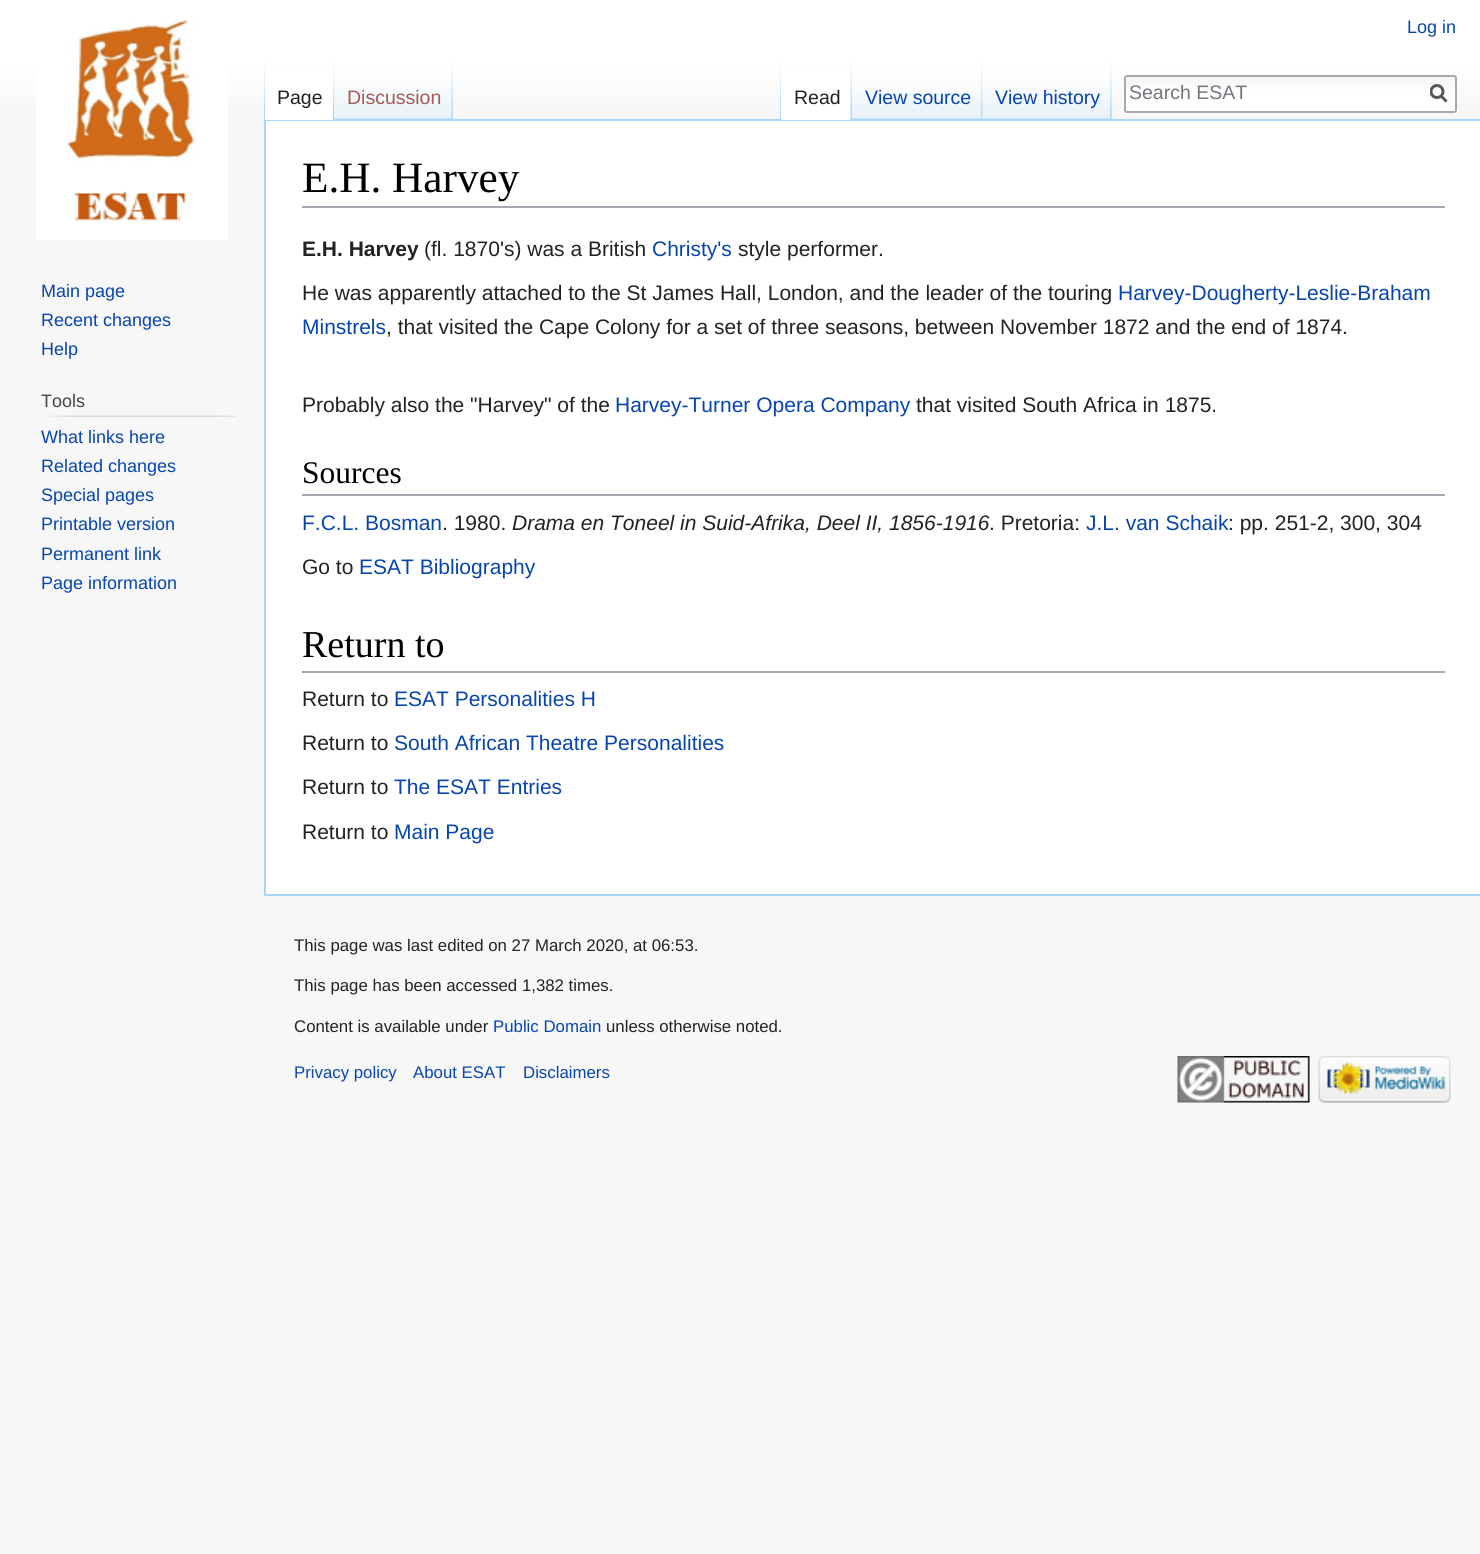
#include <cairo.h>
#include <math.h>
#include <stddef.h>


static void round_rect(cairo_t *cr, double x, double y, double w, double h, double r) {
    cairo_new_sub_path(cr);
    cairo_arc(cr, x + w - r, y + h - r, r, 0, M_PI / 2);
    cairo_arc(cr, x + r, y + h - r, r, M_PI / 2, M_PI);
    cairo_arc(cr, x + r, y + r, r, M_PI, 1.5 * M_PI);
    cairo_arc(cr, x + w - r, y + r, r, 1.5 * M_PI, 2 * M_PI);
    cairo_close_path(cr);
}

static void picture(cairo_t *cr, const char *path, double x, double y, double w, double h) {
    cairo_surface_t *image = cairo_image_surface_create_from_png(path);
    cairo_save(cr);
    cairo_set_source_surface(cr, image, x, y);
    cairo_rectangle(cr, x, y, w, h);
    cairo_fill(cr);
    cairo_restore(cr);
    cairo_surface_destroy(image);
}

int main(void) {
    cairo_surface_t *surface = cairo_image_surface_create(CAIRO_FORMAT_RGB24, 1480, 1554);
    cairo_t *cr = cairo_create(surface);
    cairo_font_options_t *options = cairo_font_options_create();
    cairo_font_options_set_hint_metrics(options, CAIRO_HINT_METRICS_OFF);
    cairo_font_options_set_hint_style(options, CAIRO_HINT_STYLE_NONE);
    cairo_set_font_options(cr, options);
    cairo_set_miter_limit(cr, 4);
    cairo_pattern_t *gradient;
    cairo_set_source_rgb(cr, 0.965, 0.965, 0.965);
    cairo_paint(cr);
    gradient = cairo_pattern_create_linear(740, 0, 740, 120);
    cairo_pattern_add_color_stop_rgba(gradient, 0.5, 1, 1, 1, 1);
    cairo_pattern_add_color_stop_rgba(gradient, 1, 0.965, 0.965, 0.965, 1);
    cairo_set_source(cr, gradient);
    cairo_pattern_destroy(gradient);
    cairo_rectangle(cr, 0, 0, 1480, 103);
    cairo_fill(cr);
    cairo_select_font_face(cr, "Liberation Sans", CAIRO_FONT_SLANT_NORMAL, CAIRO_FONT_WEIGHT_NORMAL);
    cairo_set_font_size(cr, 18);
    cairo_set_source_rgb(cr, 0.024, 0.271, 0.678);
    cairo_move_to(cr, 1407, 33);
    cairo_show_text(cr, "Log in");
    picture(cr, "img1.png", 264, 60, 2, 59);
    cairo_set_source_rgb(cr, 0.655, 0.843, 0.976);
    cairo_rectangle(cr, 264, 119, 1216, 2);
    cairo_fill(cr);
    cairo_rectangle(cr, 264, 894, 1216, 2);
    cairo_fill(cr);
    cairo_rectangle(cr, 264, 119, 2, 777);
    cairo_fill(cr);
    cairo_set_source_rgb(cr, 1, 1, 1);
    cairo_rectangle(cr, 265, 70, 70, 50);
    cairo_fill(cr);
    picture(cr, "img2.png", 333, 60, 2, 60);
    cairo_set_font_size(cr, 19.5);
    cairo_set_source_rgb(cr, 0.133, 0.133, 0.133);
    cairo_move_to(cr, 277, 104);
    cairo_show_text(cr, "Page");
    picture(cr, "img3.png", 334, 60, 119, 60);
    picture(cr, "img4.png", 451, 60, 2, 59);
    cairo_set_source_rgb(cr, 0.647, 0.345, 0.345);
    cairo_move_to(cr, 347, 104);
    cairo_show_text(cr, "Discussion");
    picture(cr, "img1.png", 780, 60, 2, 59);
    picture(cr, "img5.png", 1111, 60, 1, 59);
    cairo_set_source_rgb(cr, 1, 1, 1);
    cairo_rectangle(cr, 781, 70, 70, 50);
    cairo_fill(cr);
    picture(cr, "img6.png", 850, 60, 2, 60);
    cairo_set_source_rgb(cr, 0.133, 0.133, 0.133);
    cairo_move_to(cr, 794, 104);
    cairo_show_text(cr, "Read");
    picture(cr, "img7.png", 852, 92, 131, 27);
    picture(cr, "img8.png", 981, 60, 2, 59);
    cairo_set_source_rgb(cr, 0.024, 0.271, 0.678);
    cairo_move_to(cr, 865, 104);
    cairo_show_text(cr, "View source");
    picture(cr, "img9.png", 982, 60, 130, 59);
    picture(cr, "img10.png", 1110, 60, 2, 59);
    cairo_move_to(cr, 995, 104);
    cairo_show_text(cr, "View history");
    cairo_set_source_rgb(cr, 1, 1, 1);
    round_rect(cr, 1124, 75, 333, 38, 3);
    cairo_fill(cr);
    picture(cr, "img11.png", 1124, 76, 331, 13);
    round_rect(cr, 1125, 76, 331, 36, 2);
    cairo_set_source_rgb(cr, 0.635, 0.663, 0.694);
    cairo_stroke(cr);
    cairo_set_source_rgb(cr, 0.447, 0.467, 0.49);
    cairo_move_to(cr, 1129, 99);
    cairo_show_text(cr, "Search ESAT");
    cairo_new_path(cr);
    cairo_move_to(cr, 1446.5, 101.5);
    cairo_line_to(cr, 1440.5, 95.5);
    cairo_set_source_rgb(cr, 0.329, 0.349, 0.365);
    cairo_set_line_width(cr, 3);
    cairo_stroke(cr);
    cairo_save(cr);
    cairo_rectangle(cr, 1430, 84, 18, 20);
    cairo_clip(cr);
    cairo_arc(cr, 1437, 91.5, 6, 0, 2 * M_PI);
    cairo_stroke(cr);
    cairo_restore(cr);
    picture(cr, "img12.png", 36, 17, 192, 223);
    cairo_set_font_size(cr, 18);
    cairo_set_source_rgb(cr, 0.024, 0.271, 0.678);
    cairo_move_to(cr, 41, 297);
    cairo_show_text(cr, "Main page");
    cairo_move_to(cr, 41, 326);
    cairo_show_text(cr, "Recent changes");
    cairo_move_to(cr, 41, 355);
    cairo_show_text(cr, "Help");
    cairo_set_source_rgb(cr, 0.267, 0.267, 0.267);
    cairo_move_to(cr, 41, 407);
    cairo_show_text(cr, "Tools");
    picture(cr, "img13.png", 44, 415, 193, 2);
    cairo_set_source_rgb(cr, 0.024, 0.271, 0.678);
    cairo_move_to(cr, 41, 443);
    cairo_show_text(cr, "What links here");
    cairo_move_to(cr, 41, 472);
    cairo_show_text(cr, "Related changes");
    cairo_move_to(cr, 41, 501);
    cairo_show_text(cr, "Special pages");
    cairo_move_to(cr, 41, 530);
    cairo_show_text(cr, "Printable version");
    cairo_move_to(cr, 41, 560);
    cairo_show_text(cr, "Permanent link");
    cairo_move_to(cr, 41, 589);
    cairo_show_text(cr, "Page information");
    cairo_set_source_rgb(cr, 1, 1, 1);
    cairo_rectangle(cr, 266, 121, 1214, 773);
    cairo_fill(cr);
    cairo_set_source_rgb(cr, 0.635, 0.663, 0.694);
    cairo_rectangle(cr, 302, 206, 1143, 2);
    cairo_fill(cr);
    cairo_select_font_face(cr, "Liberation Serif", CAIRO_FONT_SLANT_NORMAL, CAIRO_FONT_WEIGHT_NORMAL);
    cairo_set_font_size(cr, 43.25);
    cairo_set_source_rgb(cr, 0, 0, 0);
    cairo_move_to(cr, 302, 192);
    cairo_show_text(cr, "E.H. Harvey");
    cairo_select_font_face(cr, "Liberation Sans", CAIRO_FONT_SLANT_NORMAL, CAIRO_FONT_WEIGHT_BOLD);
    cairo_set_font_size(cr, 21);
    cairo_set_source_rgb(cr, 0.133, 0.133, 0.133);
    cairo_move_to(cr, 302, 256);
    cairo_show_text(cr, "E.H. Harvey");
    cairo_select_font_face(cr, "Liberation Sans", CAIRO_FONT_SLANT_NORMAL, CAIRO_FONT_WEIGHT_NORMAL);
    cairo_move_to(cr, 424, 256);
    cairo_show_text(cr, "(fl. 1870's) was a British");
    cairo_set_source_rgb(cr, 0.024, 0.271, 0.678);
    cairo_move_to(cr, 652, 256);
    cairo_show_text(cr, "Christy's");
    cairo_set_source_rgb(cr, 0.133, 0.133, 0.133);
    cairo_move_to(cr, 738, 256);
    cairo_show_text(cr, "style performer.");
    cairo_move_to(cr, 302, 300);
    cairo_show_text(cr, "He was apparently attached to the St James Hall, London, and the leader of the touring");
    cairo_set_source_rgb(cr, 0.024, 0.271, 0.678);
    cairo_move_to(cr, 1118, 300);
    cairo_show_text(cr, "Harvey-Dougherty-Leslie-Braham");
    cairo_move_to(cr, 302, 334);
    cairo_show_text(cr, "Minstrels");
    cairo_set_source_rgb(cr, 0.133, 0.133, 0.133);
    cairo_move_to(cr, 386, 334);
    cairo_show_text(cr, ", that visited the Cape Colony for a set of three seasons, between November 1872 and the end of 1874.");
    cairo_move_to(cr, 302, 412);
    cairo_show_text(cr, "Probably also the \"Harvey\" of the");
    cairo_set_source_rgb(cr, 0.024, 0.271, 0.678);
    cairo_move_to(cr, 615, 412);
    cairo_show_text(cr, "Harvey-Turner Opera Company");
    cairo_set_source_rgb(cr, 0.133, 0.133, 0.133);
    cairo_move_to(cr, 916, 412);
    cairo_show_text(cr, "that visited South Africa in 1875.");
    cairo_set_source_rgb(cr, 0.635, 0.663, 0.694);
    cairo_rectangle(cr, 302, 494, 1143, 2);
    cairo_fill(cr);
    cairo_select_font_face(cr, "Liberation Serif", CAIRO_FONT_SLANT_NORMAL, CAIRO_FONT_WEIGHT_NORMAL);
    cairo_set_font_size(cr, 31.5);
    cairo_set_source_rgb(cr, 0, 0, 0);
    cairo_move_to(cr, 302, 483);
    cairo_show_text(cr, "Sources");
    cairo_select_font_face(cr, "Liberation Sans", CAIRO_FONT_SLANT_NORMAL, CAIRO_FONT_WEIGHT_NORMAL);
    cairo_set_font_size(cr, 21);
    cairo_set_source_rgb(cr, 0.024, 0.271, 0.678);
    cairo_move_to(cr, 302, 530);
    cairo_show_text(cr, "F.C.L. Bosman");
    cairo_set_source_rgb(cr, 0.133, 0.133, 0.133);
    cairo_move_to(cr, 442, 530);
    cairo_show_text(cr, ". 1980.");
    cairo_select_font_face(cr, "Liberation Sans", CAIRO_FONT_SLANT_ITALIC, CAIRO_FONT_WEIGHT_NORMAL);
    cairo_move_to(cr, 512, 530);
    cairo_show_text(cr, "Drama en Toneel in Suid-Afrika, Deel II, 1856-1916");
    cairo_select_font_face(cr, "Liberation Sans", CAIRO_FONT_SLANT_NORMAL, CAIRO_FONT_WEIGHT_NORMAL);
    cairo_move_to(cr, 989, 530);
    cairo_show_text(cr, ". Pretoria:");
    cairo_set_source_rgb(cr, 0.024, 0.271, 0.678);
    cairo_move_to(cr, 1086, 530);
    cairo_show_text(cr, "J.L. van Schaik");
    cairo_set_source_rgb(cr, 0.133, 0.133, 0.133);
    cairo_move_to(cr, 1228, 530);
    cairo_show_text(cr, ": pp. 251-2, 300, 304");
    cairo_move_to(cr, 302, 574);
    cairo_show_text(cr, "Go to");
    cairo_set_source_rgb(cr, 0.024, 0.271, 0.678);
    cairo_move_to(cr, 359, 574);
    cairo_show_text(cr, "ESAT Bibliography");
    cairo_set_source_rgb(cr, 0.635, 0.663, 0.694);
    cairo_rectangle(cr, 302, 671, 1143, 2);
    cairo_fill(cr);
    cairo_select_font_face(cr, "Liberation Serif", CAIRO_FONT_SLANT_NORMAL, CAIRO_FONT_WEIGHT_NORMAL);
    cairo_set_font_size(cr, 38);
    cairo_set_source_rgb(cr, 0, 0, 0);
    cairo_move_to(cr, 302, 657);
    cairo_show_text(cr, "Return to");
    cairo_select_font_face(cr, "Liberation Sans", CAIRO_FONT_SLANT_NORMAL, CAIRO_FONT_WEIGHT_NORMAL);
    cairo_set_font_size(cr, 21);
    cairo_set_source_rgb(cr, 0.133, 0.133, 0.133);
    cairo_move_to(cr, 302, 706);
    cairo_show_text(cr, "Return to");
    cairo_set_source_rgb(cr, 0.024, 0.271, 0.678);
    cairo_move_to(cr, 394, 706);
    cairo_show_text(cr, "ESAT Personalities H");
    cairo_set_source_rgb(cr, 0.133, 0.133, 0.133);
    cairo_move_to(cr, 302, 750);
    cairo_show_text(cr, "Return to");
    cairo_set_source_rgb(cr, 0.024, 0.271, 0.678);
    cairo_move_to(cr, 394, 750);
    cairo_show_text(cr, "South African Theatre Personalities");
    cairo_set_source_rgb(cr, 0.133, 0.133, 0.133);
    cairo_move_to(cr, 302, 794);
    cairo_show_text(cr, "Return to");
    cairo_set_source_rgb(cr, 0.024, 0.271, 0.678);
    cairo_move_to(cr, 394, 794);
    cairo_show_text(cr, "The ESAT Entries");
    cairo_set_source_rgb(cr, 0.133, 0.133, 0.133);
    cairo_move_to(cr, 302, 839);
    cairo_show_text(cr, "Return to");
    cairo_set_source_rgb(cr, 0.024, 0.271, 0.678);
    cairo_move_to(cr, 394, 839);
    cairo_show_text(cr, "Main Page");
    cairo_set_font_size(cr, 16.8);
    cairo_set_source_rgb(cr, 0.133, 0.133, 0.133);
    cairo_move_to(cr, 294, 951);
    cairo_show_text(cr, "This page was last edited on 27 March 2020, at 06:53.");
    cairo_move_to(cr, 294, 991);
    cairo_show_text(cr, "This page has been accessed 1,382 times.");
    cairo_move_to(cr, 294, 1032);
    cairo_show_text(cr, "Content is available under");
    cairo_set_source_rgb(cr, 0.024, 0.271, 0.678);
    cairo_move_to(cr, 493, 1032);
    cairo_show_text(cr, "Public Domain");
    cairo_set_source_rgb(cr, 0.133, 0.133, 0.133);
    cairo_move_to(cr, 606, 1032);
    cairo_show_text(cr, "unless otherwise noted.");
    cairo_set_source_rgb(cr, 0.024, 0.271, 0.678);
    cairo_move_to(cr, 294, 1078);
    cairo_show_text(cr, "Privacy policy");
    cairo_move_to(cr, 413, 1078);
    cairo_show_text(cr, "About ESAT");
    cairo_move_to(cr, 523, 1078);
    cairo_show_text(cr, "Disclaimers");
    picture(cr, "img14.png", 1177, 1056, 133, 47);
    picture(cr, "img15.png", 1318, 1056, 133, 47);
    cairo_surface_write_to_png(surface, "page.png");
    cairo_font_options_destroy(options);
    cairo_destroy(cr);
    cairo_surface_destroy(surface);
    return 0;
}
